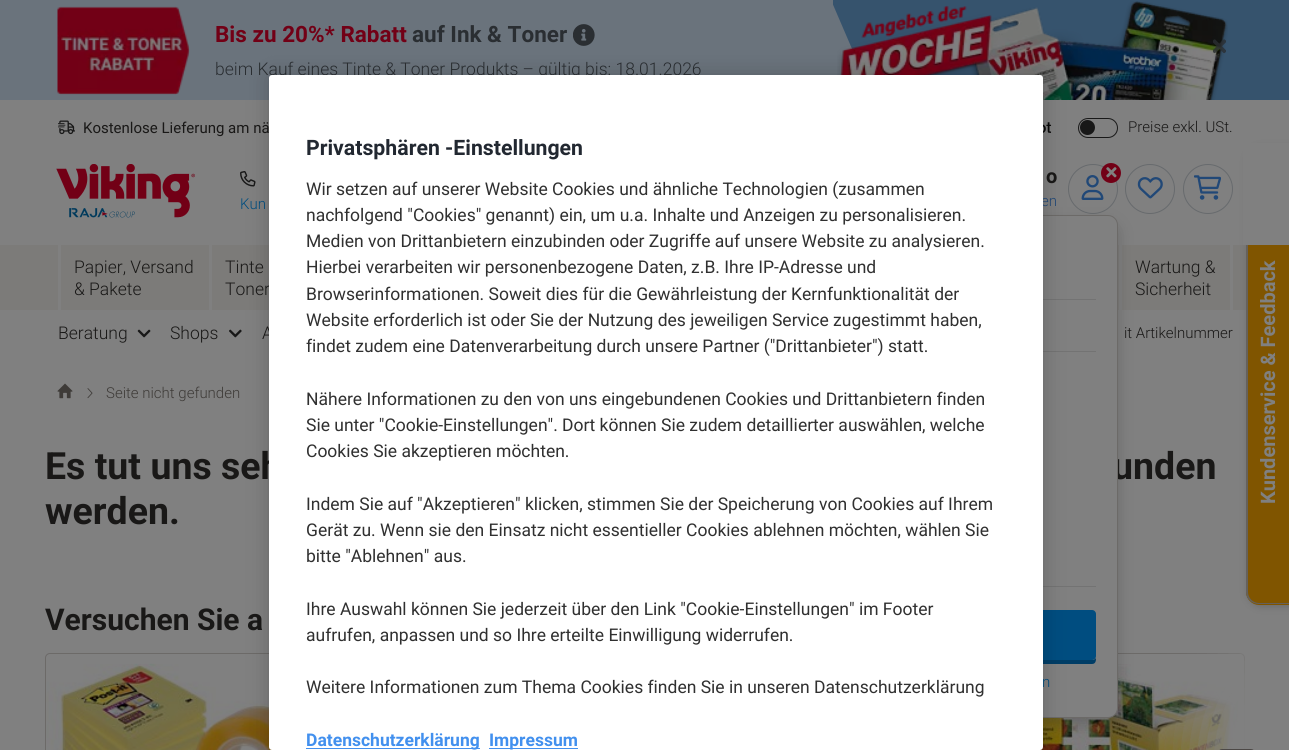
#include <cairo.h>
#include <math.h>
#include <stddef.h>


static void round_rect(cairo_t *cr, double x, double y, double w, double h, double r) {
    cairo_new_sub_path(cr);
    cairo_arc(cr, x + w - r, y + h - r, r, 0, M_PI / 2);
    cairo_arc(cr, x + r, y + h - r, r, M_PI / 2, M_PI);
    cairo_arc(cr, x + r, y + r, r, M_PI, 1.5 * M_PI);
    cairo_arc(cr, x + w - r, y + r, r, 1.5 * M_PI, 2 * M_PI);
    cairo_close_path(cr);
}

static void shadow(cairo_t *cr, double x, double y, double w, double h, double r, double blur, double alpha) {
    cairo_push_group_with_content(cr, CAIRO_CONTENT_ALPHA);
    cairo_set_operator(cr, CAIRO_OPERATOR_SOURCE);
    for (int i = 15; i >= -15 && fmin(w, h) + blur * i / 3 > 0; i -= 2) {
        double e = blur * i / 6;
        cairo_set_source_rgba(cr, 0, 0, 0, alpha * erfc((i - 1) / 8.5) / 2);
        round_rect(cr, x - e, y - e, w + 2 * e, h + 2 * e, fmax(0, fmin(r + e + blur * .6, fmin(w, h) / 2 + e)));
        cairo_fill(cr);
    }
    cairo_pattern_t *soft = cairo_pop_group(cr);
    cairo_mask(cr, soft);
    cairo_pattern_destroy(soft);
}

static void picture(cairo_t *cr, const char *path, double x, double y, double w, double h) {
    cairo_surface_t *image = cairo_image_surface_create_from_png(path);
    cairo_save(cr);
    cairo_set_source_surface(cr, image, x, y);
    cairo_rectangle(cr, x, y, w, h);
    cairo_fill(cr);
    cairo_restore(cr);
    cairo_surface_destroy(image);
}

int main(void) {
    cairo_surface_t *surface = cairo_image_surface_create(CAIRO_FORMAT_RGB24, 1289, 750);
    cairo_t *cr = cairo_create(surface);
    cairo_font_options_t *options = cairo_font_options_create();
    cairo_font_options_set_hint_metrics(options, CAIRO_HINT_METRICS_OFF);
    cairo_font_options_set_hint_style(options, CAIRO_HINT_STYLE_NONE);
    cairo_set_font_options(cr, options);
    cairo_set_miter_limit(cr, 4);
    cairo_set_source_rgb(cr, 0.502, 0.502, 0.502);
    cairo_paint(cr);
    cairo_set_source_rgb(cr, 0.416, 0.451, 0.486);
    cairo_rectangle(cr, 0, 0, 833, 100);
    cairo_fill(cr);
    cairo_set_source_rgb(cr, 0.212, 0.325, 0.427);
    cairo_rectangle(cr, 833, 0, 456, 100);
    cairo_fill(cr);
    picture(cr, "img1.png", 57, 6, 133, 89);
    cairo_select_font_face(cr, "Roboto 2", CAIRO_FONT_SLANT_NORMAL, CAIRO_FONT_WEIGHT_BOLD);
    cairo_set_font_size(cr, 22.5);
    cairo_set_source_rgb(cr, 0.447, 0, 0.086);
    cairo_move_to(cr, 215, 42);
    cairo_show_text(cr, "Bis zu 20%* Rabatt");
    cairo_set_source_rgb(cr, 0.165, 0.18, 0.196);
    cairo_move_to(cr, 412, 42);
    cairo_show_text(cr, "auf Ink & Toner");
    picture(cr, "img2.png", 573, 24, 22, 22);
    cairo_select_font_face(cr, "Roboto Light", CAIRO_FONT_SLANT_NORMAL, CAIRO_FONT_WEIGHT_NORMAL);
    cairo_set_font_size(cr, 17.5);
    cairo_move_to(cr, 215, 75);
    cairo_show_text(cr, "beim Kauf eines Tinte & Toner Produkts – gültig bis: 18.01.2026");
    cairo_set_source_rgb(cr, 0.416, 0.451, 0.486);
    cairo_new_path(cr);
    cairo_move_to(cr, 831, 0);
    cairo_line_to(cr, 874, 100);
    cairo_line_to(cr, 831, 100);
    cairo_close_path(cr);
    cairo_fill(cr);
    picture(cr, "img3.png", 837, 1, 391, 99);
    picture(cr, "img4.png", 1213, 39, 13, 15);
    picture(cr, "img5.png", 58, 120, 17, 15);
    cairo_select_font_face(cr, "Roboto", CAIRO_FONT_SLANT_NORMAL, CAIRO_FONT_WEIGHT_NORMAL);
    cairo_set_font_size(cr, 15);
    cairo_set_source_rgb(cr, 0.098, 0.094, 0.09);
    cairo_move_to(cr, 83, 133);
    cairo_show_text(cr, "Kostenlose Lieferung am nä");
    picture(cr, "img6.png", 1043, 122, 9, 11);
    round_rect(cr, 1078.5, 118.5, 39, 19, 9.5);
    cairo_set_source_rgb(cr, 0.094, 0.094, 0.094);
    cairo_set_line_width(cr, 1);
    cairo_stroke(cr);
    cairo_arc(cr, 1087.5, 127.5, 7.5, 0, 2 * M_PI);
    cairo_fill(cr);
    cairo_select_font_face(cr, "Roboto Light", CAIRO_FONT_SLANT_NORMAL, CAIRO_FONT_WEIGHT_NORMAL);
    cairo_set_source_rgb(cr, 0.098, 0.094, 0.09);
    cairo_move_to(cr, 1128, 132);
    cairo_show_text(cr, "Preise exkl. USt.");
    cairo_set_source_rgb(cr, 0.486, 0.482, 0.475);
    cairo_rectangle(cr, 0, 245, 1246, 65);
    cairo_fill(cr);
    cairo_set_source_rgb(cr, 0, 0, 0);
    shadow(cr, 1248, 148, 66, 458, 13, 4, 0.18);
    cairo_set_source_rgb(cr, 0.502, 0.333, 0);
    cairo_new_path(cr);
    cairo_move_to(cr, 1259, 146);
    cairo_line_to(cr, 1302, 146);
    cairo_line_to(cr, 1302, 605);
    cairo_line_to(cr, 1259, 605);
    cairo_curve_to(cr, 1252, 605, 1246, 599, 1246, 592);
    cairo_line_to(cr, 1246, 159);
    cairo_curve_to(cr, 1246, 152, 1252, 146, 1259, 146);
    cairo_close_path(cr);
    cairo_fill(cr);
    cairo_set_source_rgb(cr, 0.396, 0.38, 0.361);
    cairo_set_fill_rule(cr, CAIRO_FILL_RULE_EVEN_ODD);
    cairo_new_path(cr);
    cairo_move_to(cr, 1259, 146);
    cairo_line_to(cr, 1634, 146);
    cairo_line_to(cr, 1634, 604);
    cairo_line_to(cr, 1259, 604);
    cairo_curve_to(cr, 1252, 604, 1246, 599, 1246, 592);
    cairo_line_to(cr, 1246, 158);
    cairo_curve_to(cr, 1246, 151, 1252, 146, 1259, 146);
    cairo_close_path(cr);
    cairo_move_to(cr, 1259, 147);
    cairo_line_to(cr, 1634, 147);
    cairo_line_to(cr, 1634, 603);
    cairo_line_to(cr, 1259, 603);
    cairo_curve_to(cr, 1253, 603, 1248, 598, 1248, 592);
    cairo_line_to(cr, 1248, 158);
    cairo_curve_to(cr, 1248, 152, 1253, 147, 1259, 147);
    cairo_close_path(cr);
    cairo_fill(cr);
    cairo_set_source_rgb(cr, 0.502, 0.502, 0.502);
    cairo_rectangle(cr, 1243, 143, 46, 102);
    cairo_fill(cr);
    picture(cr, "img7.png", 56, 164, 139, 54);
    picture(cr, "img8.png", 240, 171, 16, 16);
    cairo_set_source_rgb(cr, 0, 0.302, 0.502);
    cairo_move_to(cr, 240, 209);
    cairo_show_text(cr, "Kun");
    cairo_select_font_face(cr, "Roboto 2", CAIRO_FONT_SLANT_NORMAL, CAIRO_FONT_WEIGHT_BOLD);
    cairo_set_font_size(cr, 20);
    cairo_set_source_rgb(cr, 0.098, 0.094, 0.09);
    cairo_move_to(cr, 1046, 183);
    cairo_show_text(cr, "o");
    cairo_select_font_face(cr, "Roboto Light", CAIRO_FONT_SLANT_NORMAL, CAIRO_FONT_WEIGHT_NORMAL);
    cairo_set_font_size(cr, 15);
    cairo_set_source_rgb(cr, 0.129, 0.282, 0.467);
    cairo_move_to(cr, 1041, 206);
    cairo_show_text(cr, "en");
    cairo_new_path(cr);
    cairo_arc(cr, 1093, 189, 24.5, 0, 2 * M_PI);
    cairo_set_source_rgb(cr, 0.404, 0.416, 0.427);
    cairo_stroke(cr);
    picture(cr, "img10.png", 1081, 175, 23, 25);
    cairo_set_source_rgb(cr, 0.447, 0, 0.086);
    cairo_arc(cr, 1111, 173, 10, 0, 2 * M_PI);
    cairo_fill(cr);
    picture(cr, "img9.png", 1106, 167, 11, 11);
    cairo_arc(cr, 1150, 189, 24.5, 0, 2 * M_PI);
    cairo_set_source_rgb(cr, 0.404, 0.416, 0.427);
    cairo_stroke(cr);
    cairo_set_source_rgb(cr, 0.502, 0.502, 0.502);
    cairo_rectangle(cr, 1119, 245, 3, 65);
    cairo_fill(cr);
    round_rect(cr, 960.5, 653.5, 284, 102, 4.5);
    cairo_set_source_rgb(cr, 0.424, 0.416, 0.408);
    cairo_stroke(cr);
    picture(cr, "img18.png", 1040, 663, 198, 87);
    cairo_set_source_rgb(cr, 0, 0, 0);
    shadow(cr, 768, 223, 350, 502, 10, 7.5, 0.17);
    cairo_select_font_face(cr, "Roboto", CAIRO_FONT_SLANT_NORMAL, CAIRO_FONT_WEIGHT_BOLD);
    cairo_set_font_size(cr, 37.5);
    cairo_set_source_rgb(cr, 0.098, 0.094, 0.09);
    cairo_move_to(cr, 1112, 479);
    cairo_show_text(cr, "unden");
    cairo_save(cr);
    cairo_set_fill_rule(cr, CAIRO_FILL_RULE_WINDING);
    cairo_rectangle(cr, 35, 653, 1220, 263);
    cairo_clip(cr);
    cairo_set_source_rgb(cr, 0.502, 0.502, 0.502);
    shadow(cr, 1193, 599, 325, 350, 154, 25, 1);
    cairo_restore(cr);
    cairo_set_source_rgb(cr, 0.502, 0.502, 0.502);
    round_rect(cr, 768.5, 215.5, 349, 502, 9.5);
    cairo_fill_preserve(cr);
    cairo_set_source_rgb(cr, 0.424, 0.416, 0.408);
    cairo_stroke(cr);
    cairo_set_source_rgb(cr, 0.451, 0.451, 0.451);
    cairo_rectangle(cr, 1043, 299, 53, 1);
    cairo_fill(cr);
    cairo_rectangle(cr, 1043, 351, 53, 1);
    cairo_fill(cr);
    cairo_rectangle(cr, 1043, 586, 53, 1);
    cairo_fill(cr);
    cairo_set_source_rgb(cr, 0, 0.239, 0.4);
    cairo_set_fill_rule(cr, CAIRO_FILL_RULE_WINDING);
    cairo_new_path(cr);
    cairo_move_to(cr, 789, 658);
    cairo_curve_to(cr, 789, 660, 789, 664, 793, 664);
    cairo_line_to(cr, 1092, 664);
    cairo_curve_to(cr, 1096, 664, 1096, 660, 1096, 658);
    cairo_curve_to(cr, 1095, 659, 1094, 660, 1092, 660);
    cairo_line_to(cr, 792, 660);
    cairo_curve_to(cr, 791, 660, 790, 659, 789, 658);
    cairo_close_path(cr);
    cairo_fill(cr);
    cairo_set_source_rgb(cr, 0, 0.302, 0.502);
    round_rect(cr, 789, 610, 307, 50, 4);
    cairo_fill(cr);
    cairo_select_font_face(cr, "Roboto Light", CAIRO_FONT_SLANT_NORMAL, CAIRO_FONT_WEIGHT_NORMAL);
    cairo_set_font_size(cr, 15);
    cairo_move_to(cr, 1042, 687);
    cairo_show_text(cr, "n");
    picture(cr, "img11.png", 1137, 177, 26, 22);
    cairo_arc(cr, 1208, 189, 24.5, 0, 2 * M_PI);
    cairo_set_source_rgb(cr, 0.404, 0.416, 0.427);
    cairo_stroke(cr);
    picture(cr, "img12.png", 1194, 175, 27, 25);
    cairo_set_source_rgb(cr, 0.502, 0.502, 0.502);
    cairo_rectangle(cr, 209, 245, 3, 65);
    cairo_fill(cr);
    cairo_rectangle(cr, 58, 245, 3, 65);
    cairo_fill(cr);
    cairo_set_font_size(cr, 17.5);
    cairo_set_source_rgb(cr, 0.098, 0.094, 0.09);
    cairo_move_to(cr, 74, 273);
    cairo_show_text(cr, "Papier, Versand");
    cairo_move_to(cr, 74, 295);
    cairo_show_text(cr, "& Pakete");
    cairo_move_to(cr, 225, 273);
    cairo_show_text(cr, "Tinte");
    cairo_move_to(cr, 225, 295);
    cairo_show_text(cr, "Toner");
    cairo_set_source_rgb(cr, 0.502, 0.502, 0.502);
    cairo_rectangle(cr, 1230, 245, 3, 65);
    cairo_fill(cr);
    cairo_set_source_rgb(cr, 0.098, 0.094, 0.09);
    cairo_move_to(cr, 1135, 273);
    cairo_show_text(cr, "Wartung &");
    cairo_move_to(cr, 1135, 295);
    cairo_show_text(cr, "Sicherheit");
    cairo_move_to(cr, 58, 339);
    cairo_show_text(cr, "Beratung");
    picture(cr, "img13.png", 137, 329, 14, 9);
    cairo_move_to(cr, 170, 339);
    cairo_show_text(cr, "Shops");
    picture(cr, "img14.png", 229, 329, 13, 9);
    cairo_move_to(cr, 262, 339);
    cairo_show_text(cr, "A");
    cairo_set_font_size(cr, 15);
    cairo_move_to(cr, 1124, 338);
    cairo_show_text(cr, "it Artikelnummer");
    picture(cr, "img15.png", 57, 383, 16, 16);
    picture(cr, "img16.png", 87, 388, 6, 11);
    cairo_set_source_rgb(cr, 0.243, 0.231, 0.22);
    cairo_move_to(cr, 106, 398);
    cairo_show_text(cr, "Seite nicht gefunden");
    cairo_select_font_face(cr, "Roboto", CAIRO_FONT_SLANT_NORMAL, CAIRO_FONT_WEIGHT_BOLD);
    cairo_set_font_size(cr, 37.5);
    cairo_set_source_rgb(cr, 0.098, 0.094, 0.09);
    cairo_move_to(cr, 45, 479);
    cairo_show_text(cr, "Es tut uns seh");
    cairo_move_to(cr, 45, 524);
    cairo_show_text(cr, "werden.");
    round_rect(cr, 1218.5, 749.5, 36, 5, 3.5);
    cairo_set_source_rgb(cr, 0.298, 0.282, 0.275);
    cairo_stroke(cr);
    round_rect(cr, 45.5, 653.5, 284, 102, 4.5);
    cairo_set_source_rgb(cr, 0.424, 0.416, 0.408);
    cairo_stroke(cr);
    picture(cr, "img17.png", 46, 663, 226, 87);
    cairo_set_font_size(cr, 30);
    cairo_set_source_rgb(cr, 0.098, 0.094, 0.09);
    cairo_move_to(cr, 45, 630);
    cairo_show_text(cr, "Versuchen Sie a");
    cairo_set_source_rgb(cr, 0, 0, 0);
    shadow(cr, 269, 75, 774, 675, 3, 11, 0.2);
    cairo_set_source_rgb(cr, 1, 1, 1);
    round_rect(cr, 269, 75, 774, 675, 3);
    cairo_fill(cr);
    cairo_select_font_face(cr, "Roboto 2", CAIRO_FONT_SLANT_NORMAL, CAIRO_FONT_WEIGHT_BOLD);
    cairo_set_font_size(cr, 21.25);
    cairo_set_source_rgb(cr, 0.133, 0.157, 0.192);
    cairo_move_to(cr, 306, 155);
    cairo_show_text(cr, "Privatsphären -Einstellungen");
    cairo_select_font_face(cr, "Roboto", CAIRO_FONT_SLANT_NORMAL, CAIRO_FONT_WEIGHT_NORMAL);
    cairo_set_font_size(cr, 17.5);
    cairo_set_source_rgb(cr, 0.188, 0.188, 0.188);
    cairo_move_to(cr, 306, 195);
    cairo_show_text(cr, "Wir setzen auf unserer Website Cookies und ähnliche Technologien (zusammen");
    cairo_move_to(cr, 306, 221);
    cairo_show_text(cr, "nachfolgend \"Cookies\" genannt) ein, um u.a. Inhalte und Anzeigen zu personalisieren.");
    cairo_move_to(cr, 306, 247);
    cairo_show_text(cr, "Medien von Drittanbietern einzubinden oder Zugriffe auf unsere Website zu analysieren.");
    cairo_move_to(cr, 306, 273);
    cairo_show_text(cr, "Hierbei verarbeiten wir personenbezogene Daten, z.B. Ihre IP-Adresse und");
    cairo_move_to(cr, 306, 300);
    cairo_show_text(cr, "Browserinformationen. Soweit dies für die Gewährleistung der Kernfunktionalität der");
    cairo_move_to(cr, 306, 326);
    cairo_show_text(cr, "Website erforderlich ist oder Sie der Nutzung des jeweiligen Service zugestimmt haben,");
    cairo_move_to(cr, 306, 352);
    cairo_show_text(cr, "findet zudem eine Datenverarbeitung durch unsere Partner (\"Drittanbieter\") statt.");
    cairo_move_to(cr, 306, 405);
    cairo_show_text(cr, "Nähere Informationen zu den von uns eingebundenen Cookies und Drittanbietern finden");
    cairo_move_to(cr, 306, 431);
    cairo_show_text(cr, "Sie unter \"Cookie-Einstellungen\". Dort können Sie zudem detaillierter auswählen, welche");
    cairo_move_to(cr, 306, 457);
    cairo_show_text(cr, "Cookies Sie akzeptieren möchten.");
    cairo_move_to(cr, 306, 510);
    cairo_show_text(cr, "Indem Sie auf \"Akzeptieren\" klicken, stimmen Sie der Speicherung von Cookies auf Ihrem");
    cairo_move_to(cr, 306, 536);
    cairo_show_text(cr, "Gerät zu. Wenn sie den Einsatz nicht essentieller Cookies ablehnen möchten, wählen Sie");
    cairo_move_to(cr, 306, 562);
    cairo_show_text(cr, "bitte \"Ablehnen\" aus.");
    cairo_move_to(cr, 306, 615);
    cairo_show_text(cr, "Ihre Auswahl können Sie jederzeit über den Link \"Cookie-Einstellungen\" im Footer");
    cairo_move_to(cr, 306, 641);
    cairo_show_text(cr, "aufrufen, anpassen und so Ihre erteilte Einwilligung widerrufen.");
    cairo_move_to(cr, 306, 693);
    cairo_show_text(cr, "Weitere Informationen zum Thema Cookies finden Sie in unseren Datenschutzerklärung");
    cairo_set_source_rgb(cr, 0.259, 0.565, 0.933);
    cairo_rectangle(cr, 306, 748, 174, 1);
    cairo_fill(cr);
    cairo_select_font_face(cr, "Roboto 2", CAIRO_FONT_SLANT_NORMAL, CAIRO_FONT_WEIGHT_BOLD);
    cairo_move_to(cr, 306, 746);
    cairo_show_text(cr, "Datenschutzerklärung");
    cairo_rectangle(cr, 489, 748, 89, 1);
    cairo_fill(cr);
    cairo_move_to(cr, 489, 746);
    cairo_show_text(cr, "Impressum");
    cairo_set_font_size(cr, 20);
    cairo_set_source_rgb(cr, 0.502, 0.502, 0.502);
    cairo_save(cr);
    cairo_translate(cr, 1275, 504);
    cairo_rotate(cr, -90 * M_PI / 180);
    cairo_move_to(cr, 0, 0);
    cairo_show_text(cr, "Kundenservice & Feedback");
    cairo_restore(cr);
    cairo_surface_write_to_png(surface, "page.png");
    cairo_font_options_destroy(options);
    cairo_destroy(cr);
    cairo_surface_destroy(surface);
    return 0;
}
